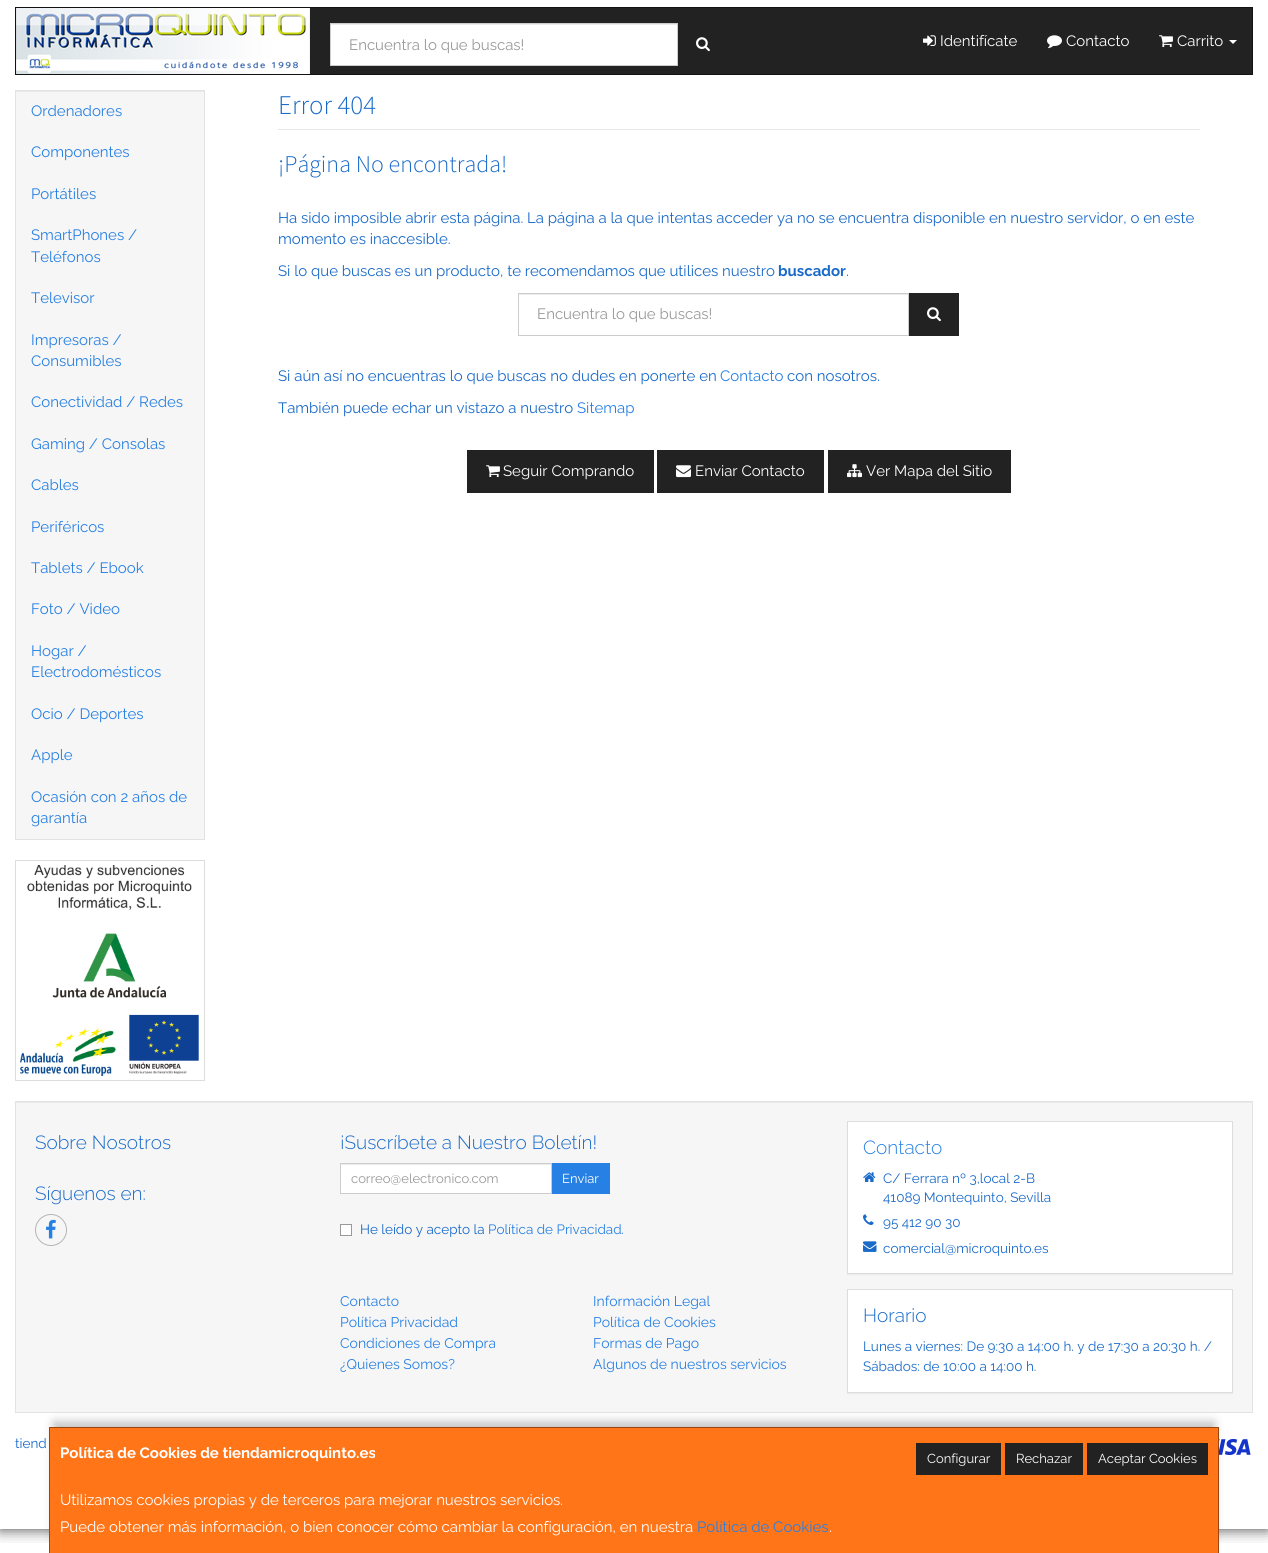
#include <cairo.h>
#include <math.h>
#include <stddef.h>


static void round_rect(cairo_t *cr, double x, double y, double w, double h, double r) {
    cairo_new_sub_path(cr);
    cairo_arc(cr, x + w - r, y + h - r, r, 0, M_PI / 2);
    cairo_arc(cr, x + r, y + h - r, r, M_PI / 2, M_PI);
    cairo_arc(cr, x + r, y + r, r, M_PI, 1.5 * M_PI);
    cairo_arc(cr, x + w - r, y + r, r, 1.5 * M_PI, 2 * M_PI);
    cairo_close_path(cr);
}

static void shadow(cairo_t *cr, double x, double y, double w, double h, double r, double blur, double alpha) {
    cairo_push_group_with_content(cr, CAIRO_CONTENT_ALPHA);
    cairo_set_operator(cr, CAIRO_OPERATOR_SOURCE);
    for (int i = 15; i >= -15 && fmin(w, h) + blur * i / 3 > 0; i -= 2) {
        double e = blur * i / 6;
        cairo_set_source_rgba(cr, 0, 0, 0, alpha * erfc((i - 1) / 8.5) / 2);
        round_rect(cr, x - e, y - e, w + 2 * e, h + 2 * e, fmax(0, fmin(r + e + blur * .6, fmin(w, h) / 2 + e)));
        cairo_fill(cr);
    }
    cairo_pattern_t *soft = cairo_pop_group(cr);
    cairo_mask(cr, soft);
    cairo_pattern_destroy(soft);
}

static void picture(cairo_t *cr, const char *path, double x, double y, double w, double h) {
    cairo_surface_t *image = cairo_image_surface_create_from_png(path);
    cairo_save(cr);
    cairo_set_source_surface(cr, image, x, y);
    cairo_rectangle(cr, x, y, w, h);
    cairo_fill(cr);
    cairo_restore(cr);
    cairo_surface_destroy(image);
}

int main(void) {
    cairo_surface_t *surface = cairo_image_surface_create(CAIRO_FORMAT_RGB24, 1268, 1553);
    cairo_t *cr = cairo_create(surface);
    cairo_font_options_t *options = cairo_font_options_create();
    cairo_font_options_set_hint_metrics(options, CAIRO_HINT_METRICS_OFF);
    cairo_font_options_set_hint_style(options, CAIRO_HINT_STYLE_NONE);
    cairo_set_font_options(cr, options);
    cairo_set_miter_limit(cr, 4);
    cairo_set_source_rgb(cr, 1, 1, 1);
    cairo_paint(cr);
    cairo_save(cr);
    cairo_rectangle(cr, 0, 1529, 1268, 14);
    cairo_clip(cr);
    cairo_set_source_rgb(cr, 0, 0, 0);
    shadow(cr, 0, 0, 1268, 1529, 0, 7.5, 0.75);
    cairo_restore(cr);
    cairo_set_source_rgb(cr, 0.133, 0.133, 0.133);
    cairo_rectangle(cr, 15.5, 7.5, 1237, 67);
    cairo_fill_preserve(cr);
    cairo_set_source_rgb(cr, 0.071, 0.071, 0.071);
    cairo_set_line_width(cr, 1);
    cairo_stroke(cr);
    picture(cr, "img1.png", 16, 8, 294, 66);
    cairo_set_source_rgb(cr, 1, 1, 1);
    cairo_rectangle(cr, 331, 25, 346, 40);
    cairo_fill(cr);
    cairo_set_source_rgb(cr, 0.925, 0.925, 0.925);
    cairo_rectangle(cr, 331, 24, 346, 1);
    cairo_fill(cr);
    cairo_rectangle(cr, 330.5, 23.5, 347, 42);
    cairo_set_source_rgb(cr, 0.8, 0.8, 0.8);
    cairo_stroke(cr);
    cairo_select_font_face(cr, "Raleway", CAIRO_FONT_SLANT_NORMAL, CAIRO_FONT_WEIGHT_NORMAL);
    cairo_set_font_size(cr, 15);
    cairo_set_source_rgb(cr, 0.6, 0.6, 0.6);
    cairo_move_to(cr, 349, 50);
    cairo_show_text(cr, "Encuentra lo que buscas!");
    picture(cr, "img2.png", 696, 37, 14, 15);
    picture(cr, "img3.png", 923, 35, 13, 11);
    cairo_set_source_rgb(cr, 1, 1, 1);
    cairo_move_to(cr, 940, 46);
    cairo_show_text(cr, "Identifícate");
    picture(cr, "img4.png", 1047, 35, 15, 14);
    cairo_move_to(cr, 1066, 46);
    cairo_show_text(cr, "Contacto");
    picture(cr, "img5.png", 1159, 35, 14, 13);
    cairo_move_to(cr, 1177, 46);
    cairo_show_text(cr, "Carrito");
    cairo_new_path(cr);
    cairo_move_to(cr, 1229, 40);
    cairo_line_to(cr, 1237, 40);
    cairo_line_to(cr, 1233, 44);
    cairo_close_path(cr);
    cairo_fill(cr);
    cairo_set_source_rgb(cr, 0.961, 0.961, 0.961);
    cairo_rectangle(cr, 16, 92, 188, 747);
    cairo_fill(cr);
    cairo_set_source_rgb(cr, 0.914, 0.914, 0.914);
    cairo_rectangle(cr, 16, 91, 188, 1);
    cairo_fill(cr);
    cairo_rectangle(cr, 15.5, 90.5, 189, 749);
    cairo_set_source_rgb(cr, 0.89, 0.89, 0.89);
    cairo_stroke(cr);
    cairo_set_source_rgb(cr, 0.153, 0.502, 0.89);
    cairo_move_to(cr, 31, 116);
    cairo_show_text(cr, "Ordenadores");
    cairo_move_to(cr, 31, 157);
    cairo_show_text(cr, "Componentes");
    cairo_move_to(cr, 31, 199);
    cairo_show_text(cr, "Portátiles");
    cairo_move_to(cr, 31, 240);
    cairo_show_text(cr, "SmartPhones /");
    cairo_move_to(cr, 31, 262);
    cairo_show_text(cr, "Teléfonos");
    cairo_move_to(cr, 31, 303);
    cairo_show_text(cr, "Televisor");
    cairo_move_to(cr, 31, 345);
    cairo_show_text(cr, "Impresoras /");
    cairo_move_to(cr, 31, 366);
    cairo_show_text(cr, "Consumibles");
    cairo_move_to(cr, 31, 407);
    cairo_show_text(cr, "Conectividad / Redes");
    cairo_move_to(cr, 31, 449);
    cairo_show_text(cr, "Gaming / Consolas");
    cairo_move_to(cr, 31, 490);
    cairo_show_text(cr, "Cables");
    cairo_move_to(cr, 31, 532);
    cairo_show_text(cr, "Periféricos");
    cairo_move_to(cr, 31, 573);
    cairo_show_text(cr, "Tablets / Ebook");
    cairo_move_to(cr, 31, 614);
    cairo_show_text(cr, "Foto / Video");
    cairo_move_to(cr, 31, 656);
    cairo_show_text(cr, "Hogar /");
    cairo_move_to(cr, 31, 677);
    cairo_show_text(cr, "Electrodomésticos");
    cairo_move_to(cr, 31, 719);
    cairo_show_text(cr, "Ocio / Deportes");
    cairo_move_to(cr, 31, 760);
    cairo_show_text(cr, "Apple");
    cairo_move_to(cr, 31, 802);
    cairo_show_text(cr, "Ocasión con 2 años de");
    cairo_move_to(cr, 31, 823);
    cairo_show_text(cr, "garantía");
    cairo_rectangle(cr, 15.5, 860.5, 189, 220);
    cairo_set_source_rgb(cr, 0.867, 0.867, 0.867);
    cairo_stroke(cr);
    picture(cr, "img6.png", 20, 865, 179, 211);
    cairo_set_source_rgb(cr, 0.902, 0.902, 0.902);
    cairo_rectangle(cr, 278, 129, 922, 1);
    cairo_fill(cr);
    cairo_select_font_face(cr, "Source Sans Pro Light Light", CAIRO_FONT_SLANT_NORMAL, CAIRO_FONT_WEIGHT_NORMAL);
    cairo_set_font_size(cr, 27);
    cairo_set_source_rgb(cr, 0.098, 0.416, 0.788);
    cairo_move_to(cr, 278, 114);
    cairo_show_text(cr, "Error 404");
    cairo_set_font_size(cr, 24);
    cairo_move_to(cr, 278, 172);
    cairo_show_text(cr, "¡Página No encontrada!");
    cairo_select_font_face(cr, "Raleway", CAIRO_FONT_SLANT_NORMAL, CAIRO_FONT_WEIGHT_NORMAL);
    cairo_set_font_size(cr, 15);
    cairo_move_to(cr, 278, 223);
    cairo_show_text(cr, "Ha sido imposible abrir esta página. La página a la que intentas acceder ya no se encuentra disponible en nuestro servidor, o en este");
    cairo_move_to(cr, 278, 244);
    cairo_show_text(cr, "momento es inaccesible.");
    cairo_move_to(cr, 278, 276);
    cairo_show_text(cr, "Si lo que buscas es un producto, te recomendamos que utilices nuestro");
    cairo_select_font_face(cr, "Raleway", CAIRO_FONT_SLANT_NORMAL, CAIRO_FONT_WEIGHT_BOLD);
    cairo_move_to(cr, 778, 276);
    cairo_show_text(cr, "buscador");
    cairo_select_font_face(cr, "Raleway", CAIRO_FONT_SLANT_NORMAL, CAIRO_FONT_WEIGHT_NORMAL);
    cairo_move_to(cr, 846, 276);
    cairo_show_text(cr, ".");
    cairo_set_source_rgb(cr, 0.925, 0.925, 0.925);
    cairo_rectangle(cr, 519, 294, 389, 1);
    cairo_fill(cr);
    cairo_rectangle(cr, 518.5, 293.5, 390, 42);
    cairo_set_source_rgb(cr, 0.8, 0.8, 0.8);
    cairo_stroke(cr);
    cairo_set_source_rgb(cr, 0.6, 0.6, 0.6);
    cairo_move_to(cr, 537, 319);
    cairo_show_text(cr, "Encuentra lo que buscas!");
    cairo_set_source_rgb(cr, 0.133, 0.133, 0.133);
    cairo_rectangle(cr, 909, 293, 50, 43);
    cairo_fill(cr);
    picture(cr, "img2.png", 927, 307, 14, 15);
    cairo_set_source_rgb(cr, 0.098, 0.416, 0.788);
    cairo_move_to(cr, 278, 381);
    cairo_show_text(cr, "Si aún así no encuentras lo que buscas no dudes en ponerte en");
    cairo_set_source_rgb(cr, 0.153, 0.502, 0.89);
    cairo_move_to(cr, 720, 381);
    cairo_show_text(cr, "Contacto");
    cairo_set_source_rgb(cr, 0.098, 0.416, 0.788);
    cairo_move_to(cr, 787, 381);
    cairo_show_text(cr, "con nosotros.");
    cairo_move_to(cr, 278, 413);
    cairo_show_text(cr, "También puede echar un vistazo a nuestro");
    cairo_set_source_rgb(cr, 0.153, 0.502, 0.89);
    cairo_move_to(cr, 577, 413);
    cairo_show_text(cr, "Sitemap");
    cairo_set_source_rgb(cr, 0.133, 0.133, 0.133);
    cairo_rectangle(cr, 467, 450, 187, 43);
    cairo_fill(cr);
    picture(cr, "img5.png", 486, 465, 14, 13);
    cairo_set_source_rgb(cr, 1, 1, 1);
    cairo_move_to(cr, 503, 476);
    cairo_show_text(cr, "Seguir Comprando");
    cairo_set_source_rgb(cr, 0.133, 0.133, 0.133);
    cairo_rectangle(cr, 657, 450, 167, 43);
    cairo_fill(cr);
    picture(cr, "img7.png", 676, 465, 15, 13);
    cairo_set_source_rgb(cr, 1, 1, 1);
    cairo_move_to(cr, 695, 476);
    cairo_show_text(cr, "Enviar Contacto");
    cairo_set_source_rgb(cr, 0.133, 0.133, 0.133);
    cairo_rectangle(cr, 828, 450, 183, 43);
    cairo_fill(cr);
    picture(cr, "img8.png", 847, 464, 15, 14);
    cairo_set_source_rgb(cr, 1, 1, 1);
    cairo_move_to(cr, 866, 476);
    cairo_show_text(cr, "Ver Mapa del Sitio");
    cairo_set_source_rgb(cr, 0.961, 0.961, 0.961);
    cairo_rectangle(cr, 16, 1103, 1236, 309);
    cairo_fill(cr);
    cairo_set_source_rgb(cr, 0.914, 0.914, 0.914);
    cairo_rectangle(cr, 16, 1102, 1236, 1);
    cairo_fill(cr);
    cairo_rectangle(cr, 15.5, 1101.5, 1237, 311);
    cairo_set_source_rgb(cr, 0.89, 0.89, 0.89);
    cairo_stroke(cr);
    cairo_select_font_face(cr, "Raleway Light", CAIRO_FONT_SLANT_NORMAL, CAIRO_FONT_WEIGHT_NORMAL);
    cairo_set_font_size(cr, 19);
    cairo_set_source_rgb(cr, 0.098, 0.416, 0.788);
    cairo_move_to(cr, 35, 1149);
    cairo_show_text(cr, "Sobre Nosotros");
    cairo_move_to(cr, 35, 1200);
    cairo_show_text(cr, "Síguenos en:");
    cairo_new_path(cr);
    cairo_arc(cr, 51, 1230, 15.5, 0, 2 * M_PI);
    cairo_set_source_rgb(cr, 0.71, 0.71, 0.71);
    cairo_stroke(cr);
    picture(cr, "img9.png", 46, 1219, 10, 20);
    cairo_set_source_rgb(cr, 0.098, 0.416, 0.788);
    cairo_move_to(cr, 340, 1149);
    cairo_show_text(cr, "¡Suscríbete a Nuestro Boletín!");
    cairo_set_source_rgb(cr, 1, 1, 1);
    cairo_rectangle(cr, 341, 1165, 210, 28);
    cairo_fill(cr);
    cairo_set_source_rgb(cr, 0.925, 0.925, 0.925);
    cairo_rectangle(cr, 341, 1164, 210, 1);
    cairo_fill(cr);
    cairo_rectangle(cr, 340.5, 1163.5, 211, 30);
    cairo_set_source_rgb(cr, 0.8, 0.8, 0.8);
    cairo_stroke(cr);
    cairo_select_font_face(cr, "Raleway", CAIRO_FONT_SLANT_NORMAL, CAIRO_FONT_WEIGHT_NORMAL);
    cairo_set_font_size(cr, 13);
    cairo_set_source_rgb(cr, 0.6, 0.6, 0.6);
    cairo_move_to(cr, 351, 1183);
    cairo_show_text(cr, "correo@electronico.com");
    cairo_set_source_rgb(cr, 0.153, 0.502, 0.89);
    cairo_rectangle(cr, 552, 1163, 58, 31);
    cairo_fill(cr);
    cairo_set_source_rgb(cr, 1, 1, 1);
    cairo_move_to(cr, 562, 1183);
    cairo_show_text(cr, "Enviar");
    cairo_rectangle(cr, 340.5, 1224.5, 11, 11);
    cairo_fill_preserve(cr);
    cairo_set_source_rgb(cr, 0.6, 0.6, 0.6);
    cairo_stroke(cr);
    cairo_set_font_size(cr, 13.5);
    cairo_set_source_rgb(cr, 0.098, 0.416, 0.788);
    cairo_move_to(cr, 360, 1234);
    cairo_show_text(cr, "He leído y acepto la");
    cairo_set_source_rgb(cr, 0.153, 0.502, 0.89);
    cairo_move_to(cr, 488, 1234);
    cairo_show_text(cr, "Política de Privacidad");
    cairo_set_source_rgb(cr, 0.098, 0.416, 0.788);
    cairo_move_to(cr, 621, 1234);
    cairo_show_text(cr, ".");
    cairo_set_font_size(cr, 14);
    cairo_set_source_rgb(cr, 0.153, 0.502, 0.89);
    cairo_move_to(cr, 340, 1306);
    cairo_show_text(cr, "Contacto");
    cairo_move_to(cr, 593, 1306);
    cairo_show_text(cr, "Información Legal");
    cairo_move_to(cr, 340, 1327);
    cairo_show_text(cr, "Política Privacidad");
    cairo_move_to(cr, 593, 1327);
    cairo_show_text(cr, "Política de Cookies");
    cairo_move_to(cr, 340, 1348);
    cairo_show_text(cr, "Condiciones de Compra");
    cairo_move_to(cr, 593, 1348);
    cairo_show_text(cr, "Formas de Pago");
    cairo_move_to(cr, 340, 1369);
    cairo_show_text(cr, "¿Quienes Somos?");
    cairo_move_to(cr, 593, 1369);
    cairo_show_text(cr, "Algunos de nuestros servicios");
    cairo_set_source_rgb(cr, 0, 0, 0);
    shadow(cr, 847, 1122, 386, 153, 0, 0.5, 0.05);
    cairo_set_source_rgb(cr, 1, 1, 1);
    cairo_rectangle(cr, 847.5, 1121.5, 385, 152);
    cairo_fill_preserve(cr);
    cairo_set_source_rgb(cr, 0.867, 0.867, 0.867);
    cairo_stroke(cr);
    cairo_select_font_face(cr, "Raleway Light", CAIRO_FONT_SLANT_NORMAL, CAIRO_FONT_WEIGHT_NORMAL);
    cairo_set_font_size(cr, 19);
    cairo_set_source_rgb(cr, 0.153, 0.502, 0.89);
    cairo_move_to(cr, 863, 1154);
    cairo_show_text(cr, "Contacto");
    picture(cr, "img10.png", 863, 1172, 13, 10);
    cairo_select_font_face(cr, "Raleway", CAIRO_FONT_SLANT_NORMAL, CAIRO_FONT_WEIGHT_NORMAL);
    cairo_set_font_size(cr, 13.5);
    cairo_set_source_rgb(cr, 0.098, 0.416, 0.788);
    cairo_move_to(cr, 883, 1183);
    cairo_show_text(cr, "C/ Ferrara nº 3,local 2-B");
    cairo_move_to(cr, 883, 1202);
    cairo_show_text(cr, "41089 Montequinto, Sevilla");
    picture(cr, "img11.png", 863, 1214, 11, 11);
    cairo_move_to(cr, 883, 1227);
    cairo_show_text(cr, "95 412 90 30");
    picture(cr, "img12.png", 863, 1241, 14, 11);
    cairo_move_to(cr, 883, 1253);
    cairo_show_text(cr, "comercial@microquinto.es");
    cairo_set_source_rgb(cr, 0, 0, 0);
    shadow(cr, 847, 1290, 386, 104, 0, 0.5, 0.05);
    cairo_set_source_rgb(cr, 1, 1, 1);
    cairo_rectangle(cr, 847.5, 1289.5, 385, 103);
    cairo_fill_preserve(cr);
    cairo_set_source_rgb(cr, 0.867, 0.867, 0.867);
    cairo_stroke(cr);
    cairo_select_font_face(cr, "Raleway Light", CAIRO_FONT_SLANT_NORMAL, CAIRO_FONT_WEIGHT_NORMAL);
    cairo_set_font_size(cr, 19);
    cairo_set_source_rgb(cr, 0.098, 0.416, 0.788);
    cairo_move_to(cr, 863, 1322);
    cairo_show_text(cr, "Horario");
    cairo_select_font_face(cr, "Raleway", CAIRO_FONT_SLANT_NORMAL, CAIRO_FONT_WEIGHT_NORMAL);
    cairo_set_font_size(cr, 13.5);
    cairo_move_to(cr, 863, 1351);
    cairo_show_text(cr, "Lunes a viernes: De 9:30 a 14:00 h. y de 17:30 a 20:30 h. /");
    cairo_move_to(cr, 863, 1371);
    cairo_show_text(cr, "Sábados: de 10:00 a 14:00 h.");
    cairo_move_to(cr, 15, 1448);
    cairo_show_text(cr, "tiend");
    picture(cr, "img13.png", 1219, 1438, 32, 17);
    cairo_set_source_rgb(cr, 0, 0, 0);
    shadow(cr, 54, 1422, 1160, 116, 0, 5, 0.25);
    cairo_set_source_rgb(cr, 1, 0.459, 0.094);
    cairo_rectangle(cr, 49, 1427, 1170, 126);
    cairo_fill(cr);
    cairo_set_source_rgb(cr, 0.6, 0.275, 0.055);
    cairo_new_path(cr);
    cairo_move_to(cr, 49, 1427);
    cairo_line_to(cr, 1219, 1427);
    cairo_line_to(cr, 1218, 1428);
    cairo_line_to(cr, 50, 1428);
    cairo_close_path(cr);
    cairo_fill(cr);
    cairo_set_source_rgba(cr, 0, 0, 0, 0.4);
    cairo_new_path(cr);
    cairo_move_to(cr, 1219, 1427);
    cairo_line_to(cr, 1219, 1553);
    cairo_line_to(cr, 1218, 1553);
    cairo_line_to(cr, 1218, 1428);
    cairo_close_path(cr);
    cairo_fill(cr);
    cairo_new_path(cr);
    cairo_move_to(cr, 49, 1553);
    cairo_line_to(cr, 49, 1427);
    cairo_line_to(cr, 50, 1428);
    cairo_line_to(cr, 50, 1553);
    cairo_close_path(cr);
    cairo_fill(cr);
    cairo_select_font_face(cr, "Raleway", CAIRO_FONT_SLANT_NORMAL, CAIRO_FONT_WEIGHT_BOLD);
    cairo_set_font_size(cr, 15);
    cairo_set_source_rgb(cr, 1, 1, 1);
    cairo_move_to(cr, 60, 1458);
    cairo_show_text(cr, "Política de Cookies de tiendamicroquinto.es");
    cairo_set_source_rgb(cr, 0.133, 0.133, 0.133);
    cairo_rectangle(cr, 916, 1443, 85, 32);
    cairo_fill(cr);
    cairo_select_font_face(cr, "Raleway", CAIRO_FONT_SLANT_NORMAL, CAIRO_FONT_WEIGHT_NORMAL);
    cairo_set_font_size(cr, 13);
    cairo_set_source_rgb(cr, 1, 1, 1);
    cairo_move_to(cr, 927, 1463);
    cairo_show_text(cr, "Configurar");
    cairo_set_source_rgb(cr, 0.133, 0.133, 0.133);
    cairo_rectangle(cr, 1005, 1443, 78, 32);
    cairo_fill(cr);
    cairo_set_source_rgb(cr, 1, 1, 1);
    cairo_move_to(cr, 1016, 1463);
    cairo_show_text(cr, "Rechazar");
    cairo_set_source_rgb(cr, 0.133, 0.133, 0.133);
    cairo_rectangle(cr, 1087, 1443, 121, 32);
    cairo_fill(cr);
    cairo_set_source_rgb(cr, 1, 1, 1);
    cairo_move_to(cr, 1098, 1463);
    cairo_show_text(cr, "Aceptar Cookies");
    cairo_set_font_size(cr, 15);
    cairo_move_to(cr, 60, 1505);
    cairo_show_text(cr, "Utilizamos cookies propias y de terceros para mejorar nuestros servicios.");
    cairo_move_to(cr, 60, 1532);
    cairo_show_text(cr, "Puede obtener más información, o bien conocer cómo cambiar la configuración, en nuestra");
    cairo_set_source_rgb(cr, 0.153, 0.502, 0.89);
    cairo_move_to(cr, 697, 1532);
    cairo_show_text(cr, "Política de Cookies");
    cairo_set_source_rgb(cr, 1, 1, 1);
    cairo_move_to(cr, 829, 1532);
    cairo_show_text(cr, ".");
    cairo_surface_write_to_png(surface, "page.png");
    cairo_font_options_destroy(options);
    cairo_destroy(cr);
    cairo_surface_destroy(surface);
    return 0;
}
